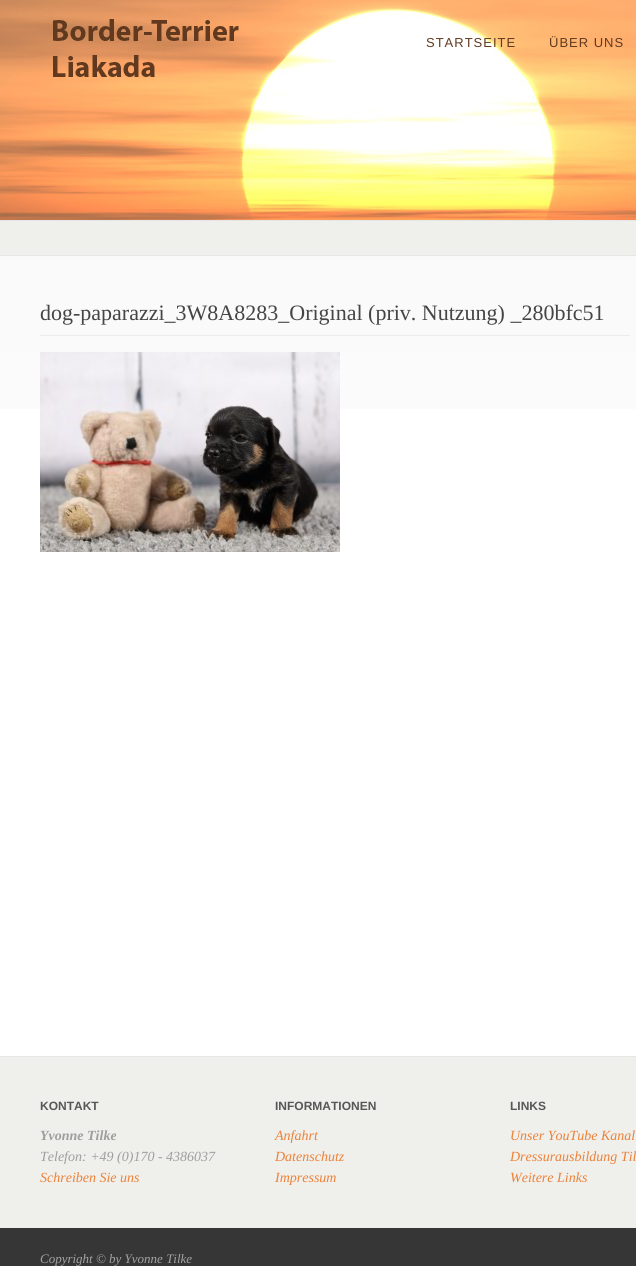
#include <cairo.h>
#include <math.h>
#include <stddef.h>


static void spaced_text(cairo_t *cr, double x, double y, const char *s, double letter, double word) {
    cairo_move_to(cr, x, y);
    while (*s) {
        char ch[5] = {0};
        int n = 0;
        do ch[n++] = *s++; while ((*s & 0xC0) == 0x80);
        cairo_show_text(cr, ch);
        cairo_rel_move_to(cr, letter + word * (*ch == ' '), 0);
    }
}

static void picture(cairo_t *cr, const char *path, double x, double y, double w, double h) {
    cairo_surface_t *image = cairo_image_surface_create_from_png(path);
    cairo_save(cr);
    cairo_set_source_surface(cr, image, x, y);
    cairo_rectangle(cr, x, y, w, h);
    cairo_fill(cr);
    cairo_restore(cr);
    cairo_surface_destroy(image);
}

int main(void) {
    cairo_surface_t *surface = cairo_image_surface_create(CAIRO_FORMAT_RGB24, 636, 1266);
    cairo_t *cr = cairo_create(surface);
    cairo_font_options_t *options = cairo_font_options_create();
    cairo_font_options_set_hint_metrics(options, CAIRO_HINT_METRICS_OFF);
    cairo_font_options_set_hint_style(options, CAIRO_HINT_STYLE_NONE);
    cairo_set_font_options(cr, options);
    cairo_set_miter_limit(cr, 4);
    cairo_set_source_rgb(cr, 1, 1, 1);
    cairo_paint(cr);
    picture(cr, "img1.png", 0, 0, 636, 220);
    picture(cr, "img2.png", 53, 19, 186, 58);
    cairo_select_font_face(cr, "Liberation Sans", CAIRO_FONT_SLANT_NORMAL, CAIRO_FONT_WEIGHT_NORMAL);
    cairo_set_font_size(cr, 13);
    cairo_set_source_rgb(cr, 0.38, 0.224, 0.122);
    spaced_text(cr, 426, 47, "STARTSEITE", 1, 0);
    spaced_text(cr, 549, 47, "ÜBER UNS", 1, 0);
    cairo_set_source_rgb(cr, 0.937, 0.937, 0.925);
    cairo_rectangle(cr, 0, 221, 636, 34);
    cairo_fill(cr);
    cairo_set_source_rgb(cr, 0.902, 0.902, 0.902);
    cairo_rectangle(cr, 0, 220, 636, 1);
    cairo_fill(cr);
    cairo_rectangle(cr, 0, 255, 636, 1);
    cairo_fill(cr);
    picture(cr, "img3.png", 0, 256, 636, 153);
    cairo_select_font_face(cr, "Liberation Serif", CAIRO_FONT_SLANT_NORMAL, CAIRO_FONT_WEIGHT_NORMAL);
    cairo_set_font_size(cr, 22);
    cairo_set_source_rgb(cr, 0.271, 0.271, 0.271);
    cairo_move_to(cr, 40, 320);
    cairo_show_text(cr, "dog-paparazzi_3W8A8283_Original (priv. Nutzung) _280bfc51");
    cairo_set_source_rgb(cr, 0.922, 0.922, 0.922);
    cairo_rectangle(cr, 40, 335, 590, 1);
    cairo_fill(cr);
    picture(cr, "img4.png", 40, 352, 300, 200);
    cairo_set_source_rgb(cr, 0.937, 0.937, 0.925);
    cairo_rectangle(cr, 0, 1057, 636, 171);
    cairo_fill(cr);
    cairo_set_source_rgb(cr, 0.902, 0.902, 0.902);
    cairo_rectangle(cr, 0, 1056, 636, 1);
    cairo_fill(cr);
    cairo_select_font_face(cr, "Liberation Sans", CAIRO_FONT_SLANT_NORMAL, CAIRO_FONT_WEIGHT_BOLD);
    cairo_set_font_size(cr, 12);
    cairo_set_source_rgb(cr, 0.341, 0.341, 0.341);
    cairo_move_to(cr, 40, 1110);
    cairo_show_text(cr, "KONTAKT");
    cairo_select_font_face(cr, "Liberation Serif", CAIRO_FONT_SLANT_ITALIC, CAIRO_FONT_WEIGHT_BOLD);
    cairo_set_font_size(cr, 14);
    cairo_set_source_rgb(cr, 0.62, 0.62, 0.616);
    cairo_move_to(cr, 40, 1140);
    cairo_show_text(cr, "Yvonne Tilke");
    cairo_select_font_face(cr, "Liberation Serif", CAIRO_FONT_SLANT_ITALIC, CAIRO_FONT_WEIGHT_NORMAL);
    cairo_move_to(cr, 40, 1161);
    cairo_show_text(cr, "Telefon: +49 (0)170 - 4386037");
    cairo_set_source_rgb(cr, 0.929, 0.506, 0.216);
    cairo_move_to(cr, 40, 1182);
    cairo_show_text(cr, "Schreiben Sie uns");
    cairo_select_font_face(cr, "Liberation Sans", CAIRO_FONT_SLANT_NORMAL, CAIRO_FONT_WEIGHT_BOLD);
    cairo_set_font_size(cr, 12);
    cairo_set_source_rgb(cr, 0.341, 0.341, 0.341);
    cairo_move_to(cr, 275, 1110);
    cairo_show_text(cr, "INFORMATIONEN");
    cairo_select_font_face(cr, "Liberation Serif", CAIRO_FONT_SLANT_ITALIC, CAIRO_FONT_WEIGHT_NORMAL);
    cairo_set_font_size(cr, 14);
    cairo_set_source_rgb(cr, 0.929, 0.506, 0.216);
    cairo_move_to(cr, 275, 1140);
    cairo_show_text(cr, "Anfahrt");
    cairo_move_to(cr, 275, 1161);
    cairo_show_text(cr, "Datenschutz");
    cairo_move_to(cr, 275, 1182);
    cairo_show_text(cr, "Impressum");
    cairo_select_font_face(cr, "Liberation Sans", CAIRO_FONT_SLANT_NORMAL, CAIRO_FONT_WEIGHT_BOLD);
    cairo_set_font_size(cr, 12);
    cairo_set_source_rgb(cr, 0.341, 0.341, 0.341);
    cairo_move_to(cr, 510, 1110);
    cairo_show_text(cr, "LINKS");
    cairo_select_font_face(cr, "Liberation Serif", CAIRO_FONT_SLANT_ITALIC, CAIRO_FONT_WEIGHT_NORMAL);
    cairo_set_font_size(cr, 14);
    cairo_set_source_rgb(cr, 0.929, 0.506, 0.216);
    cairo_move_to(cr, 510, 1140);
    cairo_show_text(cr, "Unser YouTube Kanal");
    cairo_move_to(cr, 510, 1161);
    cairo_show_text(cr, "Dressurausbildung Til");
    cairo_move_to(cr, 510, 1182);
    cairo_show_text(cr, "Weitere Links");
    cairo_set_source_rgb(cr, 0.212, 0.212, 0.212);
    cairo_rectangle(cr, 0, 1228, 636, 38);
    cairo_fill(cr);
    cairo_set_font_size(cr, 13);
    cairo_set_source_rgb(cr, 0.639, 0.639, 0.639);
    cairo_move_to(cr, 40, 1263);
    cairo_show_text(cr, "Copyright © by Yvonne Tilke");
    cairo_surface_write_to_png(surface, "page.png");
    cairo_font_options_destroy(options);
    cairo_destroy(cr);
    cairo_surface_destroy(surface);
    return 0;
}
